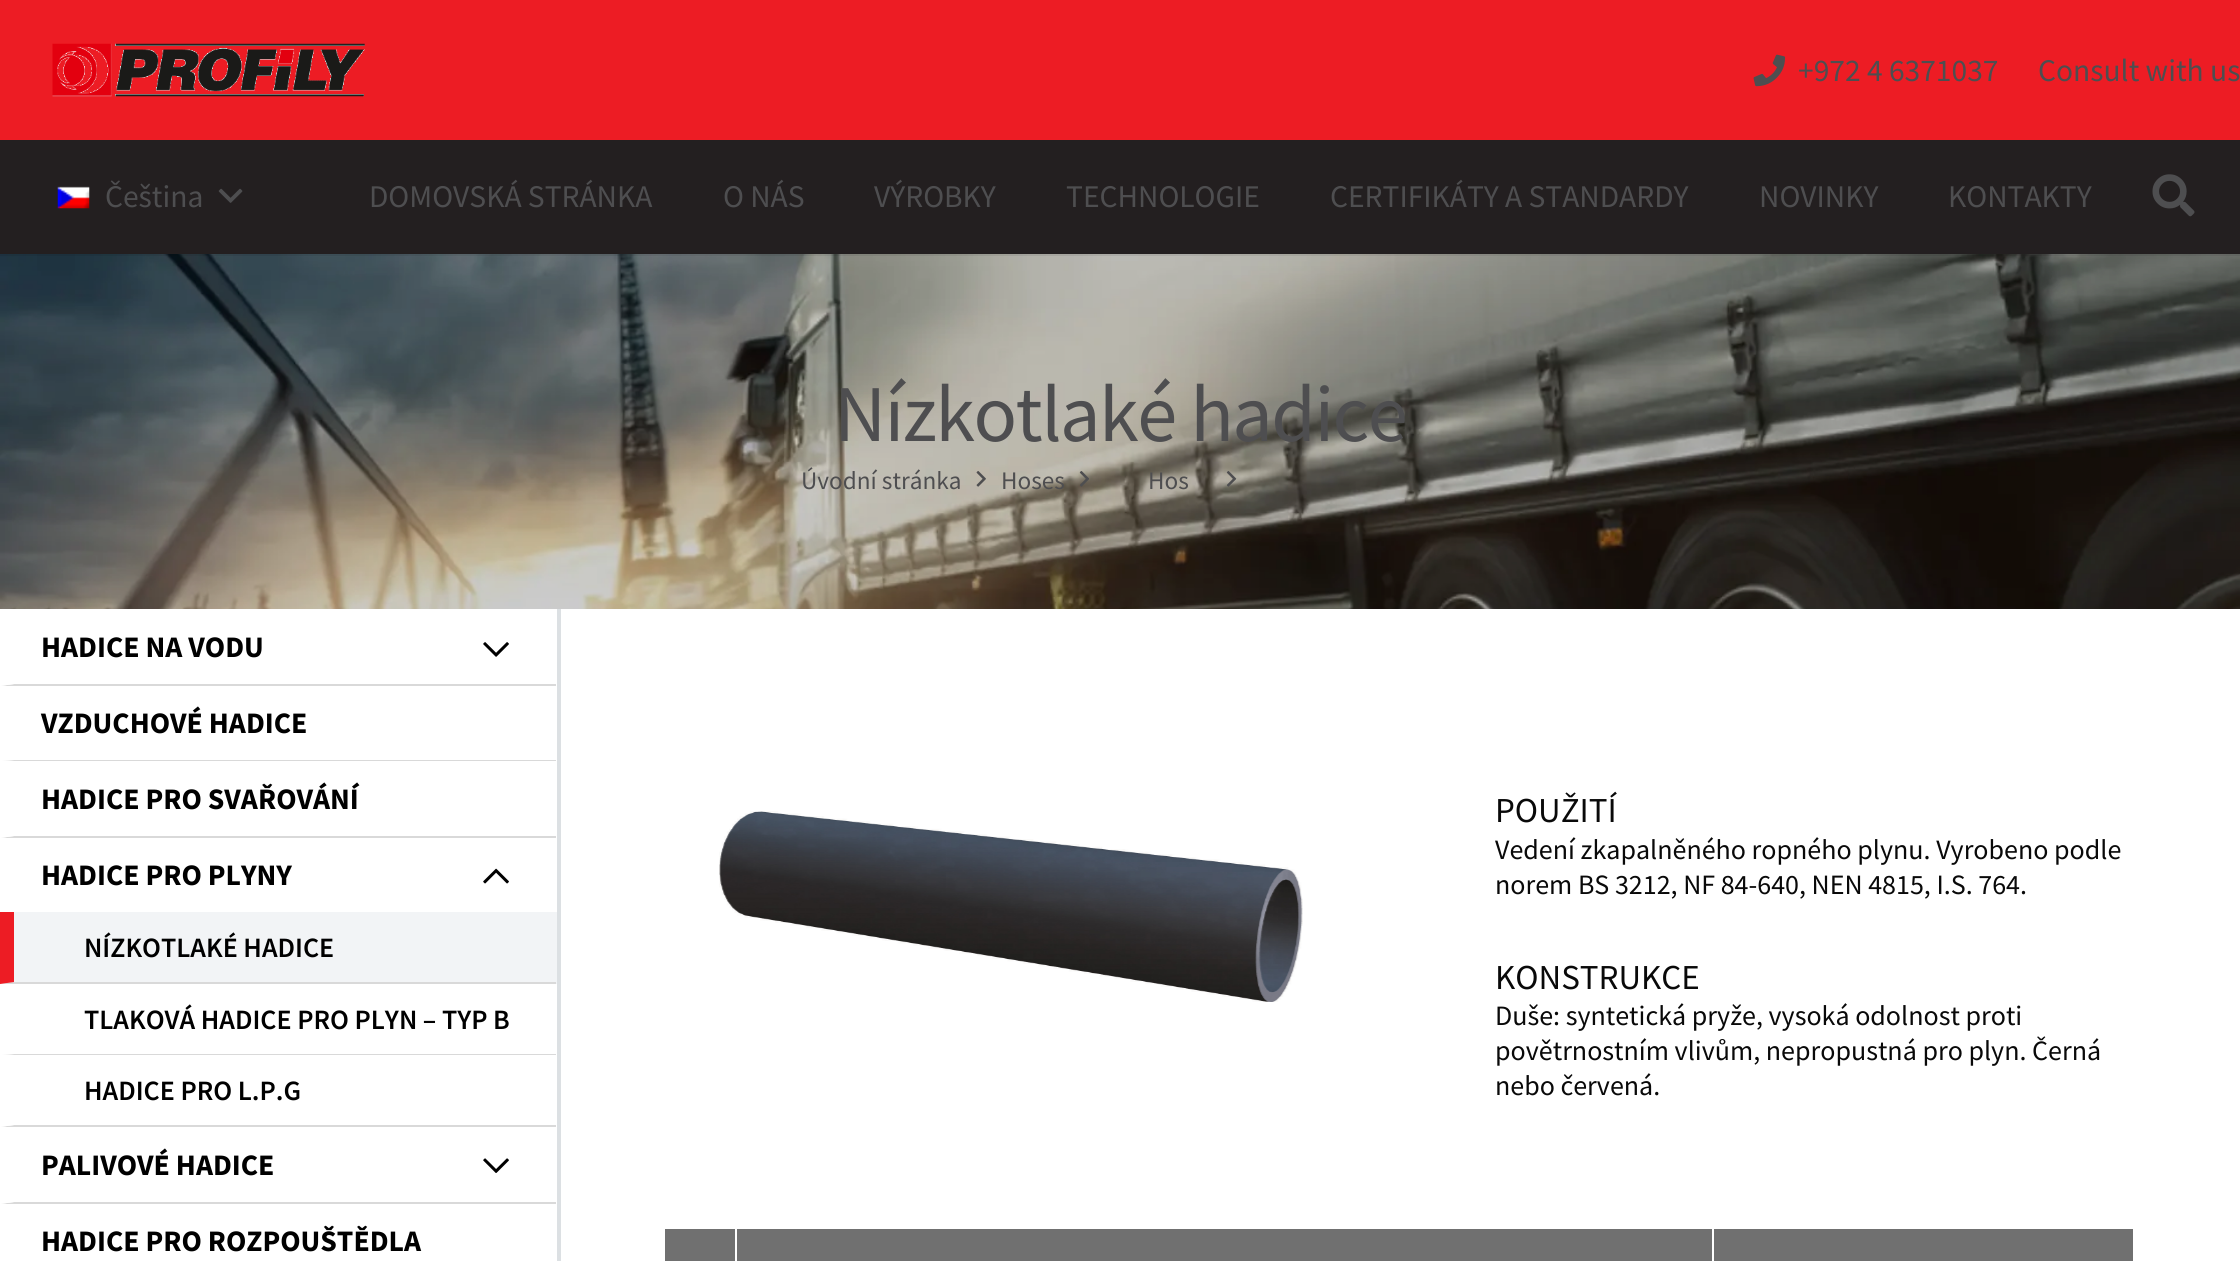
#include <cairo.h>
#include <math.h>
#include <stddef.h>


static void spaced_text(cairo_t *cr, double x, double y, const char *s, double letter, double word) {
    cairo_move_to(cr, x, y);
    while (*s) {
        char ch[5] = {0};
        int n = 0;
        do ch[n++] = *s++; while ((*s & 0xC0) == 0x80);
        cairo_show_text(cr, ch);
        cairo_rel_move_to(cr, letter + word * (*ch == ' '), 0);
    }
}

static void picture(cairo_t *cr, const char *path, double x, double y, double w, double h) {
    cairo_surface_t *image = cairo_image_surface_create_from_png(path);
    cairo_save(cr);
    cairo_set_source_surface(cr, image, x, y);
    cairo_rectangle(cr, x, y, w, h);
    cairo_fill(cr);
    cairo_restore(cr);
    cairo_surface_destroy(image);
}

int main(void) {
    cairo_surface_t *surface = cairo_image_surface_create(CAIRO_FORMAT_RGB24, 2240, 1261);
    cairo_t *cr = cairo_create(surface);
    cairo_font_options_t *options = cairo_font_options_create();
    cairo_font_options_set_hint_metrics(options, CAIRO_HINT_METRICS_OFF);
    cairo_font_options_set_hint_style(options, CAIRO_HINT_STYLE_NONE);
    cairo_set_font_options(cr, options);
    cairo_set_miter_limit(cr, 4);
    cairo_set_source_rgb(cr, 1, 1, 1);
    cairo_paint(cr);
    cairo_set_source_rgb(cr, 0.929, 0.11, 0.141);
    cairo_rectangle(cr, 0, 0, 2240, 140);
    cairo_fill(cr);
    picture(cr, "img1.png", 52, 43, 313, 54);
    picture(cr, "img2.png", 1753, 54, 33, 33);
    cairo_select_font_face(cr, "Source Sans Pro", CAIRO_FONT_SLANT_NORMAL, CAIRO_FONT_WEIGHT_NORMAL);
    cairo_set_font_size(cr, 31.5);
    cairo_set_source_rgb(cr, 0.306, 0.306, 0.314);
    cairo_move_to(cr, 1798, 81);
    cairo_show_text(cr, "+972 4 6371037");
    cairo_move_to(cr, 2038, 81);
    cairo_show_text(cr, "Consult with us");
    picture(cr, "img6.png", 0, 254, 2240, 355);
    cairo_set_source_rgba(cr, 0, 0, 0, 0.08);
    cairo_rectangle(cr, 0, 254, 2240, 2);
    cairo_fill(cr);
    cairo_set_source_rgb(cr, 0.137, 0.122, 0.125);
    cairo_rectangle(cr, 0, 140, 2240, 114);
    cairo_fill(cr);
    picture(cr, "img3.png", 57, 186, 33, 23);
    cairo_set_source_rgb(cr, 0.306, 0.306, 0.314);
    cairo_move_to(cr, 105, 207);
    cairo_show_text(cr, "Čeština");
    picture(cr, "img4.png", 218, 188, 25, 15);
    cairo_move_to(cr, 369, 207);
    cairo_show_text(cr, "DOMOVSKÁ STRÁNKA");
    cairo_move_to(cr, 723, 207);
    cairo_show_text(cr, "O NÁS");
    cairo_move_to(cr, 874, 207);
    cairo_show_text(cr, "VÝROBKY");
    cairo_move_to(cr, 1066, 207);
    cairo_show_text(cr, "TECHNOLOGIE");
    cairo_move_to(cr, 1330, 207);
    cairo_show_text(cr, "CERTIFIKÁTY A STANDARDY");
    cairo_move_to(cr, 1759, 207);
    cairo_show_text(cr, "NOVINKY");
    cairo_move_to(cr, 1948, 207);
    cairo_show_text(cr, "KONTAKTY");
    picture(cr, "img5.png", 2152, 174, 43, 43);
    cairo_set_font_size(cr, 80.5);
    spaced_text(cr, 834, 441, "Nízkotlaké hadice", -1.6, 0);
    cairo_set_font_size(cr, 25.25);
    cairo_move_to(cr, 801, 489);
    cairo_show_text(cr, "Úvodní stránka");
    picture(cr, "img7.png", 976, 471, 10, 16);
    cairo_move_to(cr, 1001, 489);
    cairo_show_text(cr, "Hoses");
    picture(cr, "img8.png", 1079, 471, 10, 16);
    cairo_move_to(cr, 1148, 489);
    cairo_show_text(cr, "Hos");
    picture(cr, "img9.png", 1226, 471, 11, 16);
    cairo_set_source_rgb(cr, 0.863, 0.878, 0.89);
    cairo_rectangle(cr, 557, 609, 4, 652);
    cairo_fill(cr);
    cairo_set_source_rgb(cr, 0.851, 0.851, 0.851);
    cairo_new_path(cr);
    cairo_move_to(cr, 556, 686);
    cairo_line_to(cr, 0, 686);
    cairo_line_to(cr, 14, 684);
    cairo_line_to(cr, 556, 684);
    cairo_close_path(cr);
    cairo_fill(cr);
    cairo_set_source_rgb(cr, 1, 1, 1);
    cairo_new_path(cr);
    cairo_move_to(cr, 0, 686);
    cairo_line_to(cr, 0, 609);
    cairo_line_to(cr, 14, 609);
    cairo_line_to(cr, 14, 684);
    cairo_close_path(cr);
    cairo_fill(cr);
    cairo_select_font_face(cr, "Source Sans Pro", CAIRO_FONT_SLANT_NORMAL, CAIRO_FONT_WEIGHT_BOLD);
    cairo_set_font_size(cr, 29.75);
    cairo_set_source_rgb(cr, 0, 0, 0);
    cairo_move_to(cr, 41, 657);
    cairo_show_text(cr, "HADICE NA VODU");
    picture(cr, "img10.png", 483, 642, 26, 15);
    cairo_set_source_rgb(cr, 0.851, 0.851, 0.851);
    cairo_new_path(cr);
    cairo_move_to(cr, 556, 761);
    cairo_line_to(cr, 0, 761);
    cairo_line_to(cr, 14, 760);
    cairo_line_to(cr, 556, 760);
    cairo_close_path(cr);
    cairo_fill(cr);
    cairo_set_source_rgb(cr, 1, 1, 1);
    cairo_new_path(cr);
    cairo_move_to(cr, 0, 761);
    cairo_line_to(cr, 0, 686);
    cairo_line_to(cr, 14, 686);
    cairo_line_to(cr, 14, 760);
    cairo_close_path(cr);
    cairo_fill(cr);
    cairo_set_source_rgb(cr, 0, 0, 0);
    cairo_move_to(cr, 41, 733);
    cairo_show_text(cr, "VZDUCHOVÉ HADICE");
    cairo_set_source_rgb(cr, 0.851, 0.851, 0.851);
    cairo_new_path(cr);
    cairo_move_to(cr, 556, 838);
    cairo_line_to(cr, 0, 838);
    cairo_line_to(cr, 14, 836);
    cairo_line_to(cr, 556, 836);
    cairo_close_path(cr);
    cairo_fill(cr);
    cairo_set_source_rgb(cr, 1, 1, 1);
    cairo_new_path(cr);
    cairo_move_to(cr, 0, 838);
    cairo_line_to(cr, 0, 761);
    cairo_line_to(cr, 14, 761);
    cairo_line_to(cr, 14, 836);
    cairo_close_path(cr);
    cairo_fill(cr);
    cairo_set_source_rgb(cr, 0, 0, 0);
    cairo_move_to(cr, 41, 809);
    cairo_show_text(cr, "HADICE PRO SVAŘOVÁNÍ");
    cairo_move_to(cr, 41, 885);
    cairo_show_text(cr, "HADICE PRO PLYNY");
    picture(cr, "img11.png", 483, 868, 26, 16);
    cairo_set_source_rgb(cr, 0.949, 0.957, 0.961);
    cairo_rectangle(cr, 0, 912, 557, 72);
    cairo_fill(cr);
    cairo_set_source_rgb(cr, 0.851, 0.851, 0.851);
    cairo_new_path(cr);
    cairo_move_to(cr, 556, 984);
    cairo_line_to(cr, 0, 984);
    cairo_line_to(cr, 14, 982);
    cairo_line_to(cr, 556, 982);
    cairo_close_path(cr);
    cairo_fill(cr);
    cairo_set_source_rgb(cr, 0.929, 0.11, 0.141);
    cairo_new_path(cr);
    cairo_move_to(cr, 0, 984);
    cairo_line_to(cr, 0, 912);
    cairo_line_to(cr, 14, 912);
    cairo_line_to(cr, 14, 982);
    cairo_close_path(cr);
    cairo_fill(cr);
    cairo_select_font_face(cr, "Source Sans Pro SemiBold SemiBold", CAIRO_FONT_SLANT_NORMAL, CAIRO_FONT_WEIGHT_NORMAL);
    cairo_set_font_size(cr, 28);
    cairo_set_source_rgb(cr, 0, 0, 0);
    cairo_move_to(cr, 84, 957);
    cairo_show_text(cr, "NÍZKOTLAKÉ HADICE");
    cairo_set_source_rgb(cr, 0.851, 0.851, 0.851);
    cairo_new_path(cr);
    cairo_move_to(cr, 556, 1055);
    cairo_line_to(cr, 0, 1055);
    cairo_line_to(cr, 14, 1054);
    cairo_line_to(cr, 556, 1054);
    cairo_close_path(cr);
    cairo_fill(cr);
    cairo_set_source_rgb(cr, 1, 1, 1);
    cairo_new_path(cr);
    cairo_move_to(cr, 0, 1055);
    cairo_line_to(cr, 0, 984);
    cairo_line_to(cr, 14, 984);
    cairo_line_to(cr, 14, 1054);
    cairo_close_path(cr);
    cairo_fill(cr);
    cairo_set_source_rgb(cr, 0, 0, 0);
    cairo_move_to(cr, 84, 1029);
    cairo_show_text(cr, "TLAKOVÁ HADICE PRO PLYN – TYP B");
    cairo_set_source_rgb(cr, 0.851, 0.851, 0.851);
    cairo_new_path(cr);
    cairo_move_to(cr, 556, 1127);
    cairo_line_to(cr, 0, 1127);
    cairo_line_to(cr, 14, 1125);
    cairo_line_to(cr, 556, 1125);
    cairo_close_path(cr);
    cairo_fill(cr);
    cairo_set_source_rgb(cr, 1, 1, 1);
    cairo_new_path(cr);
    cairo_move_to(cr, 0, 1127);
    cairo_line_to(cr, 0, 1055);
    cairo_line_to(cr, 14, 1055);
    cairo_line_to(cr, 14, 1125);
    cairo_close_path(cr);
    cairo_fill(cr);
    cairo_set_source_rgb(cr, 0, 0, 0);
    cairo_move_to(cr, 84, 1100);
    cairo_show_text(cr, "HADICE PRO L.P.G");
    cairo_set_source_rgb(cr, 0.851, 0.851, 0.851);
    cairo_new_path(cr);
    cairo_move_to(cr, 556, 1204);
    cairo_line_to(cr, 0, 1204);
    cairo_line_to(cr, 14, 1202);
    cairo_line_to(cr, 556, 1202);
    cairo_close_path(cr);
    cairo_fill(cr);
    cairo_set_source_rgb(cr, 1, 1, 1);
    cairo_new_path(cr);
    cairo_move_to(cr, 0, 1204);
    cairo_line_to(cr, 0, 1127);
    cairo_line_to(cr, 14, 1127);
    cairo_line_to(cr, 14, 1202);
    cairo_close_path(cr);
    cairo_fill(cr);
    cairo_select_font_face(cr, "Source Sans Pro", CAIRO_FONT_SLANT_NORMAL, CAIRO_FONT_WEIGHT_BOLD);
    cairo_set_font_size(cr, 29.75);
    cairo_set_source_rgb(cr, 0, 0, 0);
    cairo_move_to(cr, 41, 1175);
    cairo_show_text(cr, "PALIVOVÉ HADICE");
    picture(cr, "img12.png", 483, 1158, 26, 15);
    cairo_move_to(cr, 41, 1251);
    cairo_show_text(cr, "HADICE PRO ROZPOUŠTĚDLA");
    picture(cr, "img13.png", 719, 811, 584, 191);
    cairo_select_font_face(cr, "Source Sans Pro", CAIRO_FONT_SLANT_NORMAL, CAIRO_FONT_WEIGHT_NORMAL);
    cairo_set_font_size(cr, 35);
    cairo_set_source_rgb(cr, 0.039, 0.039, 0.039);
    cairo_move_to(cr, 1495, 822);
    cairo_show_text(cr, "POUŽITÍ");
    cairo_set_font_size(cr, 28);
    cairo_move_to(cr, 1495, 859);
    cairo_show_text(cr, "Vedení zkapalněného ropného plynu. Vyrobeno podle");
    cairo_move_to(cr, 1495, 894);
    cairo_show_text(cr, "norem BS 3212, NF 84-640, NEN 4815, I.S. 764.");
    cairo_set_font_size(cr, 35);
    cairo_move_to(cr, 1495, 989);
    cairo_show_text(cr, "KONSTRUKCE");
    cairo_set_font_size(cr, 28);
    cairo_move_to(cr, 1495, 1025);
    cairo_show_text(cr, "Duše: syntetická pryže, vysoká odolnost proti");
    cairo_move_to(cr, 1495, 1060);
    cairo_show_text(cr, "povětrnostním vlivům, nepropustná pro plyn. Černá");
    cairo_move_to(cr, 1495, 1095);
    cairo_show_text(cr, "nebo červená.");
    cairo_set_source_rgb(cr, 0.439, 0.439, 0.439);
    cairo_rectangle(cr, 665, 1229, 70, 32);
    cairo_fill(cr);
    cairo_rectangle(cr, 737, 1229, 975, 32);
    cairo_fill(cr);
    cairo_rectangle(cr, 1714, 1229, 419, 32);
    cairo_fill(cr);
    cairo_surface_write_to_png(surface, "page.png");
    cairo_font_options_destroy(options);
    cairo_destroy(cr);
    cairo_surface_destroy(surface);
    return 0;
}
